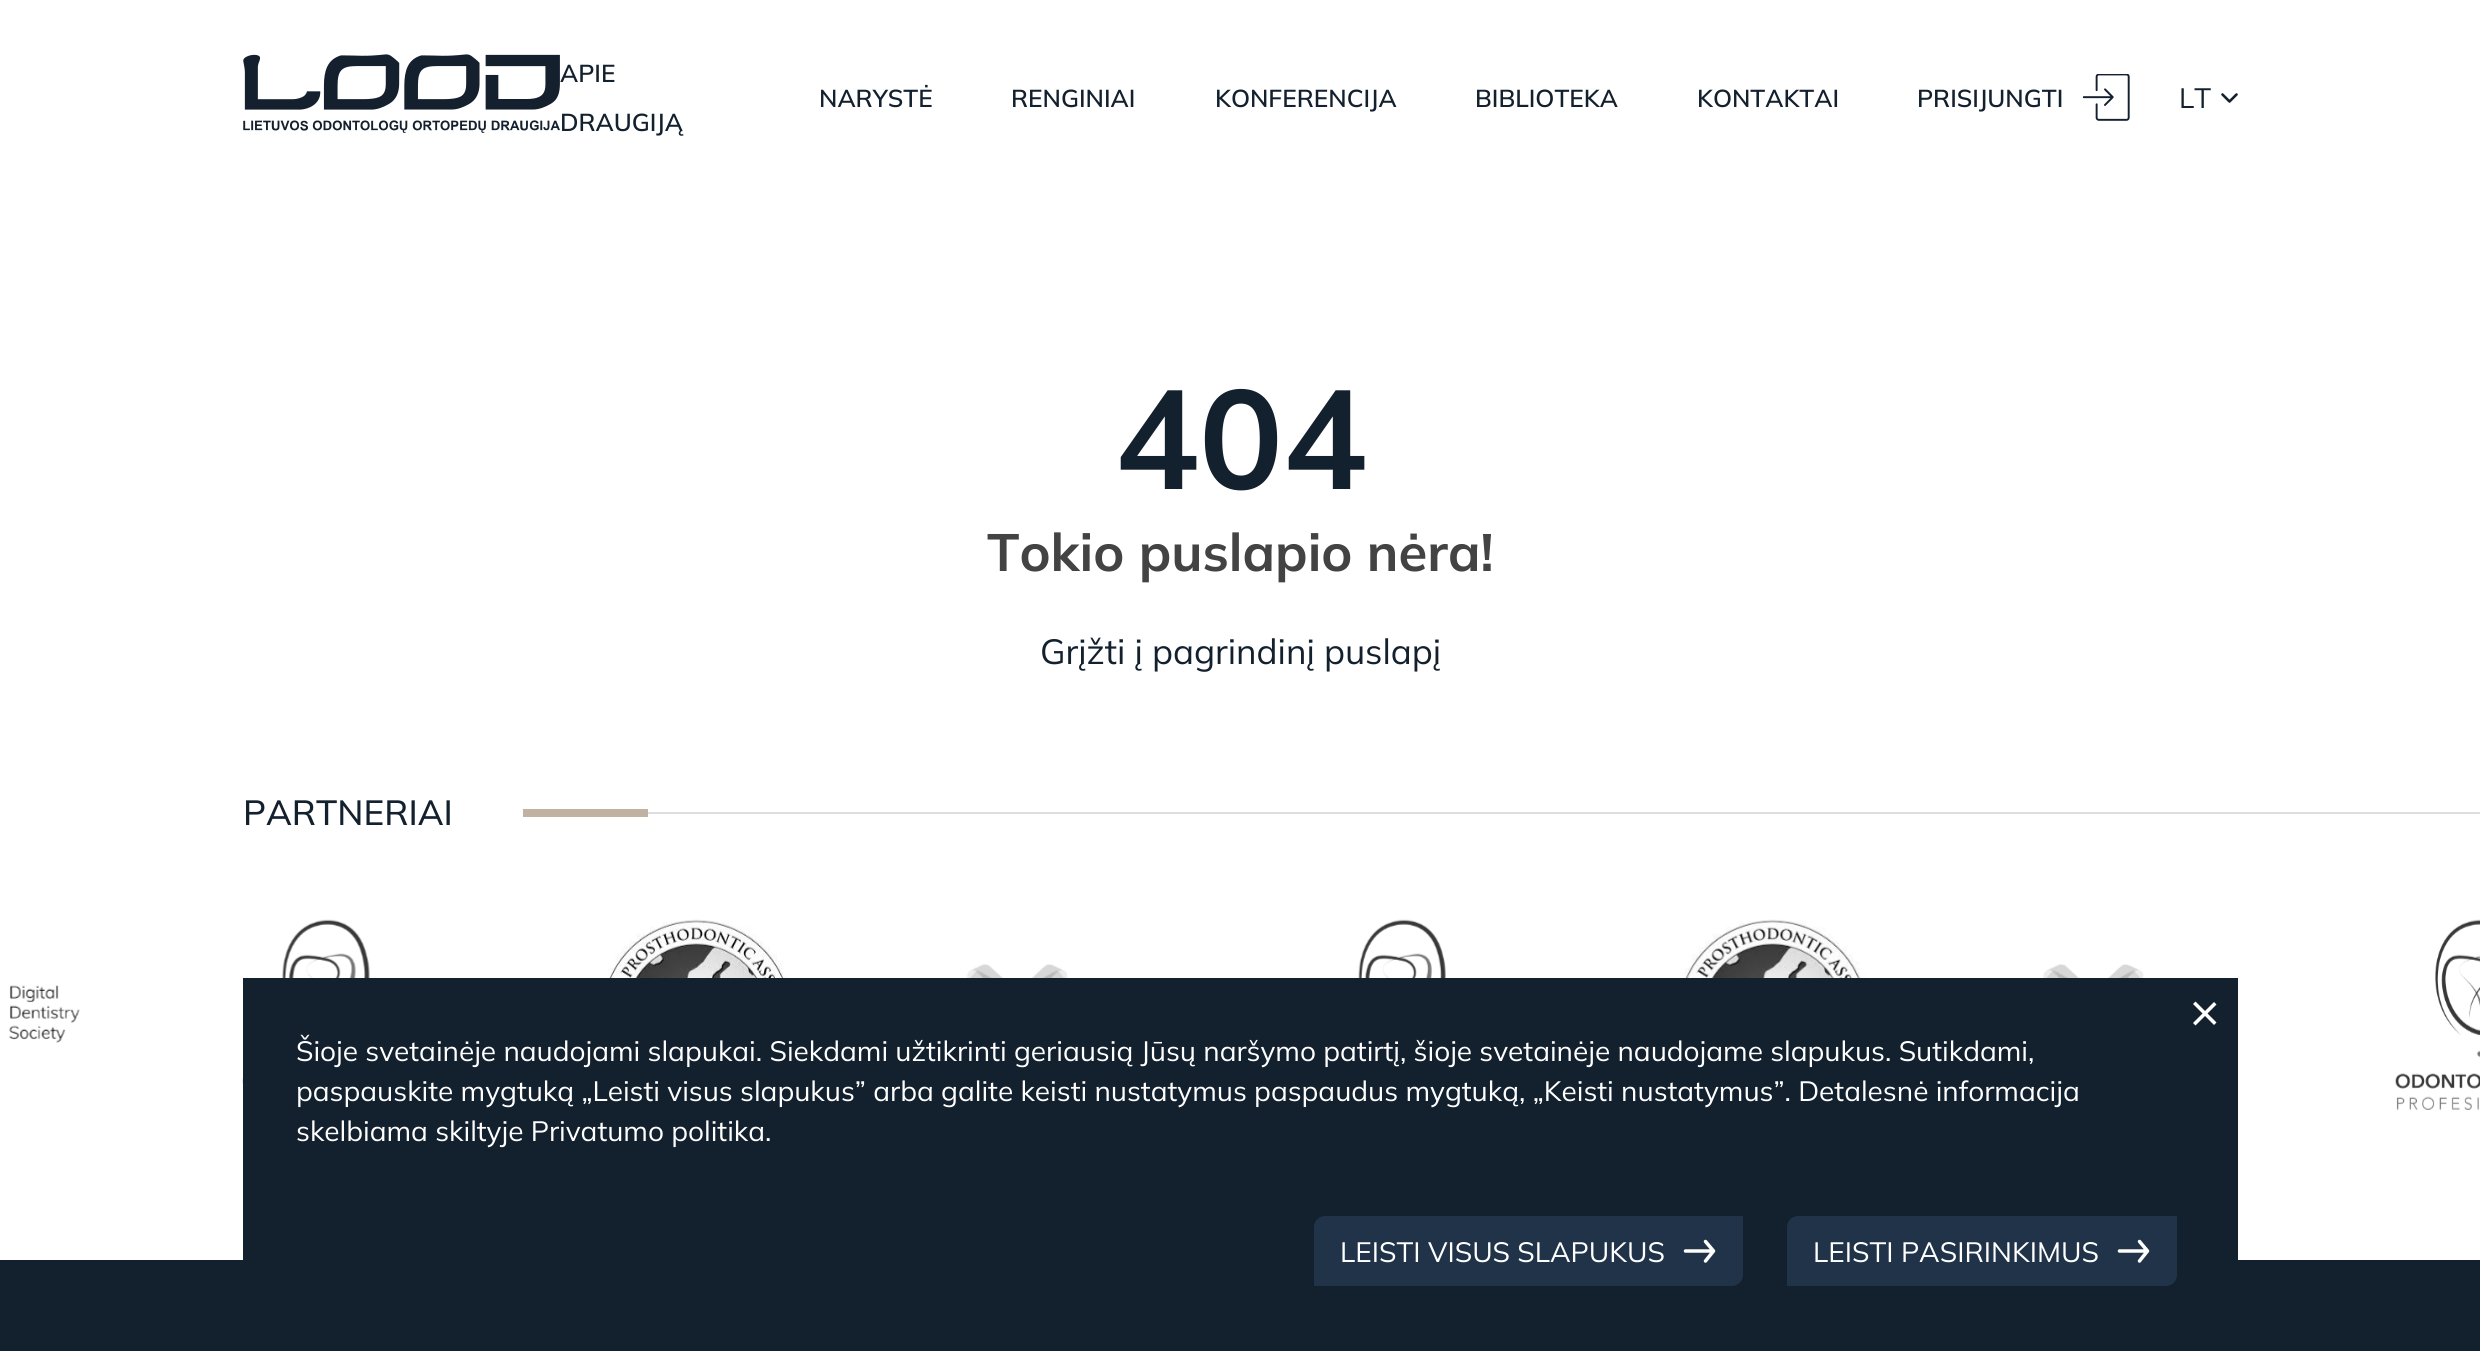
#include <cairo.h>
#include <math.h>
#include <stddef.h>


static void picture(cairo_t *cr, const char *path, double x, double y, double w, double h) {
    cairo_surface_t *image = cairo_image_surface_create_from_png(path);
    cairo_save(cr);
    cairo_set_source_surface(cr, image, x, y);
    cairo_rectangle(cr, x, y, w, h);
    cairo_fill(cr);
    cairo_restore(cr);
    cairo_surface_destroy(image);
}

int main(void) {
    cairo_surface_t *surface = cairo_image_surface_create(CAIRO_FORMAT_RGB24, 2480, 1351);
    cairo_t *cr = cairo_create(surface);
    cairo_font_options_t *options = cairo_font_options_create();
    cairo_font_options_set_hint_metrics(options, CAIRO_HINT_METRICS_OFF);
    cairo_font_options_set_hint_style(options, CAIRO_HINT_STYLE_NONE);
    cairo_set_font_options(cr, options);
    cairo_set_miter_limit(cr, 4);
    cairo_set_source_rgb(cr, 1, 1, 1);
    cairo_paint(cr);
    picture(cr, "img1.png", 243, 54, 317, 79);
    cairo_select_font_face(cr, "Mulish SemiBold", CAIRO_FONT_SLANT_NORMAL, CAIRO_FONT_WEIGHT_NORMAL);
    cairo_set_font_size(cr, 24.5);
    cairo_set_source_rgb(cr, 0.078, 0.125, 0.18);
    cairo_move_to(cr, 560, 82);
    cairo_show_text(cr, "APIE");
    cairo_move_to(cr, 560, 131);
    cairo_show_text(cr, "DRAUGIJĄ");
    cairo_move_to(cr, 819, 107);
    cairo_show_text(cr, "NARYSTĖ");
    cairo_move_to(cr, 1011, 107);
    cairo_show_text(cr, "RENGINIAI");
    cairo_move_to(cr, 1215, 107);
    cairo_show_text(cr, "KONFERENCIJA");
    cairo_move_to(cr, 1475, 107);
    cairo_show_text(cr, "BIBLIOTEKA");
    cairo_move_to(cr, 1697, 107);
    cairo_show_text(cr, "KONTAKTAI");
    cairo_move_to(cr, 1917, 107);
    cairo_show_text(cr, "PRISIJUNGTI");
    picture(cr, "img2.png", 2083, 74, 47, 47);
    cairo_select_font_face(cr, "Mulish", CAIRO_FONT_SLANT_NORMAL, CAIRO_FONT_WEIGHT_NORMAL);
    cairo_set_font_size(cr, 28);
    cairo_move_to(cr, 2179, 108);
    cairo_show_text(cr, "LT");
    cairo_new_path(cr);
    cairo_move_to(cr, 2222.5, 94.5);
    cairo_line_to(cr, 2229.5, 101.5);
    cairo_move_to(cr, 2236.5, 94.5);
    cairo_line_to(cr, 2229.5, 101.5);
    cairo_set_line_width(cr, 2.6);
    cairo_set_line_cap(cr, CAIRO_LINE_CAP_ROUND);
    cairo_stroke(cr);
    cairo_select_font_face(cr, "Mulish", CAIRO_FONT_SLANT_NORMAL, CAIRO_FONT_WEIGHT_BOLD);
    cairo_set_font_size(cr, 140);
    cairo_move_to(cr, 1115, 489);
    cairo_show_text(cr, "404");
    cairo_set_font_size(cr, 52.5);
    cairo_set_source_rgb(cr, 0.263, 0.263, 0.263);
    cairo_move_to(cr, 987, 571);
    cairo_show_text(cr, "Tokio puslapio nėra!");
    cairo_select_font_face(cr, "Mulish", CAIRO_FONT_SLANT_NORMAL, CAIRO_FONT_WEIGHT_NORMAL);
    cairo_set_font_size(cr, 35);
    cairo_set_source_rgb(cr, 0.078, 0.125, 0.18);
    cairo_move_to(cr, 1040, 664);
    cairo_show_text(cr, "Grįžti į pagrindinį puslapį");
    cairo_select_font_face(cr, "Mulish Medium", CAIRO_FONT_SLANT_NORMAL, CAIRO_FONT_WEIGHT_NORMAL);
    cairo_move_to(cr, 243, 825);
    cairo_show_text(cr, "PARTNERIAI");
    cairo_set_source_rgb(cr, 0.757, 0.694, 0.635);
    cairo_rectangle(cr, 523, 809, 125, 8);
    cairo_fill(cr);
    cairo_set_source_rgb(cr, 0.871, 0.871, 0.871);
    cairo_rectangle(cr, 648, 812, 1832, 2);
    cairo_fill(cr);
    picture(cr, "img3.png", 242, 919, 128, 165);
    picture(cr, "img4.png", 602, 919, 189, 59);
    picture(cr, "img5.png", 966, 964, 190, 14);
    picture(cr, "img6.png", 1358, 919, 88, 59);
    picture(cr, "img7.png", 1678, 919, 190, 59);
    picture(cr, "img8.png", 2043, 964, 189, 14);
    picture(cr, "img9.png", 2395, 919, 85, 191);
    picture(cr, "img10.png", 9, 985, 71, 58);
    cairo_set_source_rgb(cr, 0.078, 0.125, 0.18);
    cairo_rectangle(cr, 243, 978, 1995, 282);
    cairo_fill(cr);
    cairo_set_source_rgb(cr, 1, 1, 1);
    cairo_new_path(cr);
    cairo_move_to(cr, 2195.5, 1001.5);
    cairo_line_to(cr, 2216.5, 1022.5);
    cairo_line_to(cr, 2214, 1025);
    cairo_line_to(cr, 2193, 1004);
    cairo_close_path(cr);
    cairo_fill(cr);
    cairo_new_path(cr);
    cairo_move_to(cr, 2193, 1023);
    cairo_line_to(cr, 2214, 1002);
    cairo_line_to(cr, 2216.5, 1004.5);
    cairo_line_to(cr, 2195.5, 1025.5);
    cairo_close_path(cr);
    cairo_fill(cr);
    cairo_select_font_face(cr, "Mulish", CAIRO_FONT_SLANT_NORMAL, CAIRO_FONT_WEIGHT_NORMAL);
    cairo_set_font_size(cr, 28);
    cairo_move_to(cr, 296, 1061);
    cairo_show_text(cr, "Šioje svetainėje naudojami slapukai. Siekdami užtikrinti geriausią Jūsų naršymo patirtį, šioje svetainėje naudojame slapukus. Sutikdami,");
    cairo_move_to(cr, 296, 1101);
    cairo_show_text(cr, "paspauskite mygtuką „Leisti visus slapukus” arba galite keisti nustatymus paspaudus mygtuką, „Keisti nustatymus”. Detalesnė informacija");
    cairo_move_to(cr, 296, 1141);
    cairo_show_text(cr, "skelbiama skiltyje Privatumo politika.");
    cairo_set_source_rgb(cr, 0.078, 0.125, 0.18);
    cairo_rectangle(cr, 0, 1260, 2480, 91);
    cairo_fill(cr);
    cairo_set_source_rgb(cr, 0.125, 0.2, 0.286);
    cairo_new_path(cr);
    cairo_move_to(cr, 1325, 1216);
    cairo_line_to(cr, 1743, 1216);
    cairo_line_to(cr, 1743, 1275);
    cairo_curve_to(cr, 1743, 1281, 1738, 1286, 1732, 1286);
    cairo_line_to(cr, 1314, 1286);
    cairo_line_to(cr, 1314, 1227);
    cairo_curve_to(cr, 1314, 1221, 1319, 1216, 1325, 1216);
    cairo_close_path(cr);
    cairo_fill(cr);
    cairo_set_source_rgb(cr, 1, 1, 1);
    cairo_move_to(cr, 1340, 1262);
    cairo_show_text(cr, "LEISTI VISUS SLAPUKUS");
    cairo_new_path(cr);
    cairo_move_to(cr, 1685.5, 1251);
    cairo_line_to(cr, 1713.5, 1251);
    cairo_move_to(cr, 1705.5, 1241.5);
    cairo_line_to(cr, 1713.5, 1251);
    cairo_move_to(cr, 1705.5, 1261);
    cairo_line_to(cr, 1713.5, 1251);
    cairo_set_line_width(cr, 3.5);
    cairo_stroke(cr);
    cairo_set_source_rgb(cr, 0.125, 0.2, 0.286);
    cairo_new_path(cr);
    cairo_move_to(cr, 1798, 1216);
    cairo_line_to(cr, 2177, 1216);
    cairo_line_to(cr, 2177, 1275);
    cairo_curve_to(cr, 2177, 1281, 2172, 1286, 2166, 1286);
    cairo_line_to(cr, 1787, 1286);
    cairo_line_to(cr, 1787, 1227);
    cairo_curve_to(cr, 1787, 1221, 1792, 1216, 1798, 1216);
    cairo_close_path(cr);
    cairo_fill(cr);
    cairo_set_source_rgb(cr, 1, 1, 1);
    cairo_move_to(cr, 1813, 1262);
    cairo_show_text(cr, "LEISTI PASIRINKIMUS");
    cairo_new_path(cr);
    cairo_move_to(cr, 2119.5, 1251);
    cairo_line_to(cr, 2147.5, 1251);
    cairo_move_to(cr, 2139.5, 1241.5);
    cairo_line_to(cr, 2147.5, 1251);
    cairo_move_to(cr, 2139.5, 1261);
    cairo_line_to(cr, 2147.5, 1251);
    cairo_stroke(cr);
    cairo_surface_write_to_png(surface, "page.png");
    cairo_font_options_destroy(options);
    cairo_destroy(cr);
    cairo_surface_destroy(surface);
    return 0;
}
